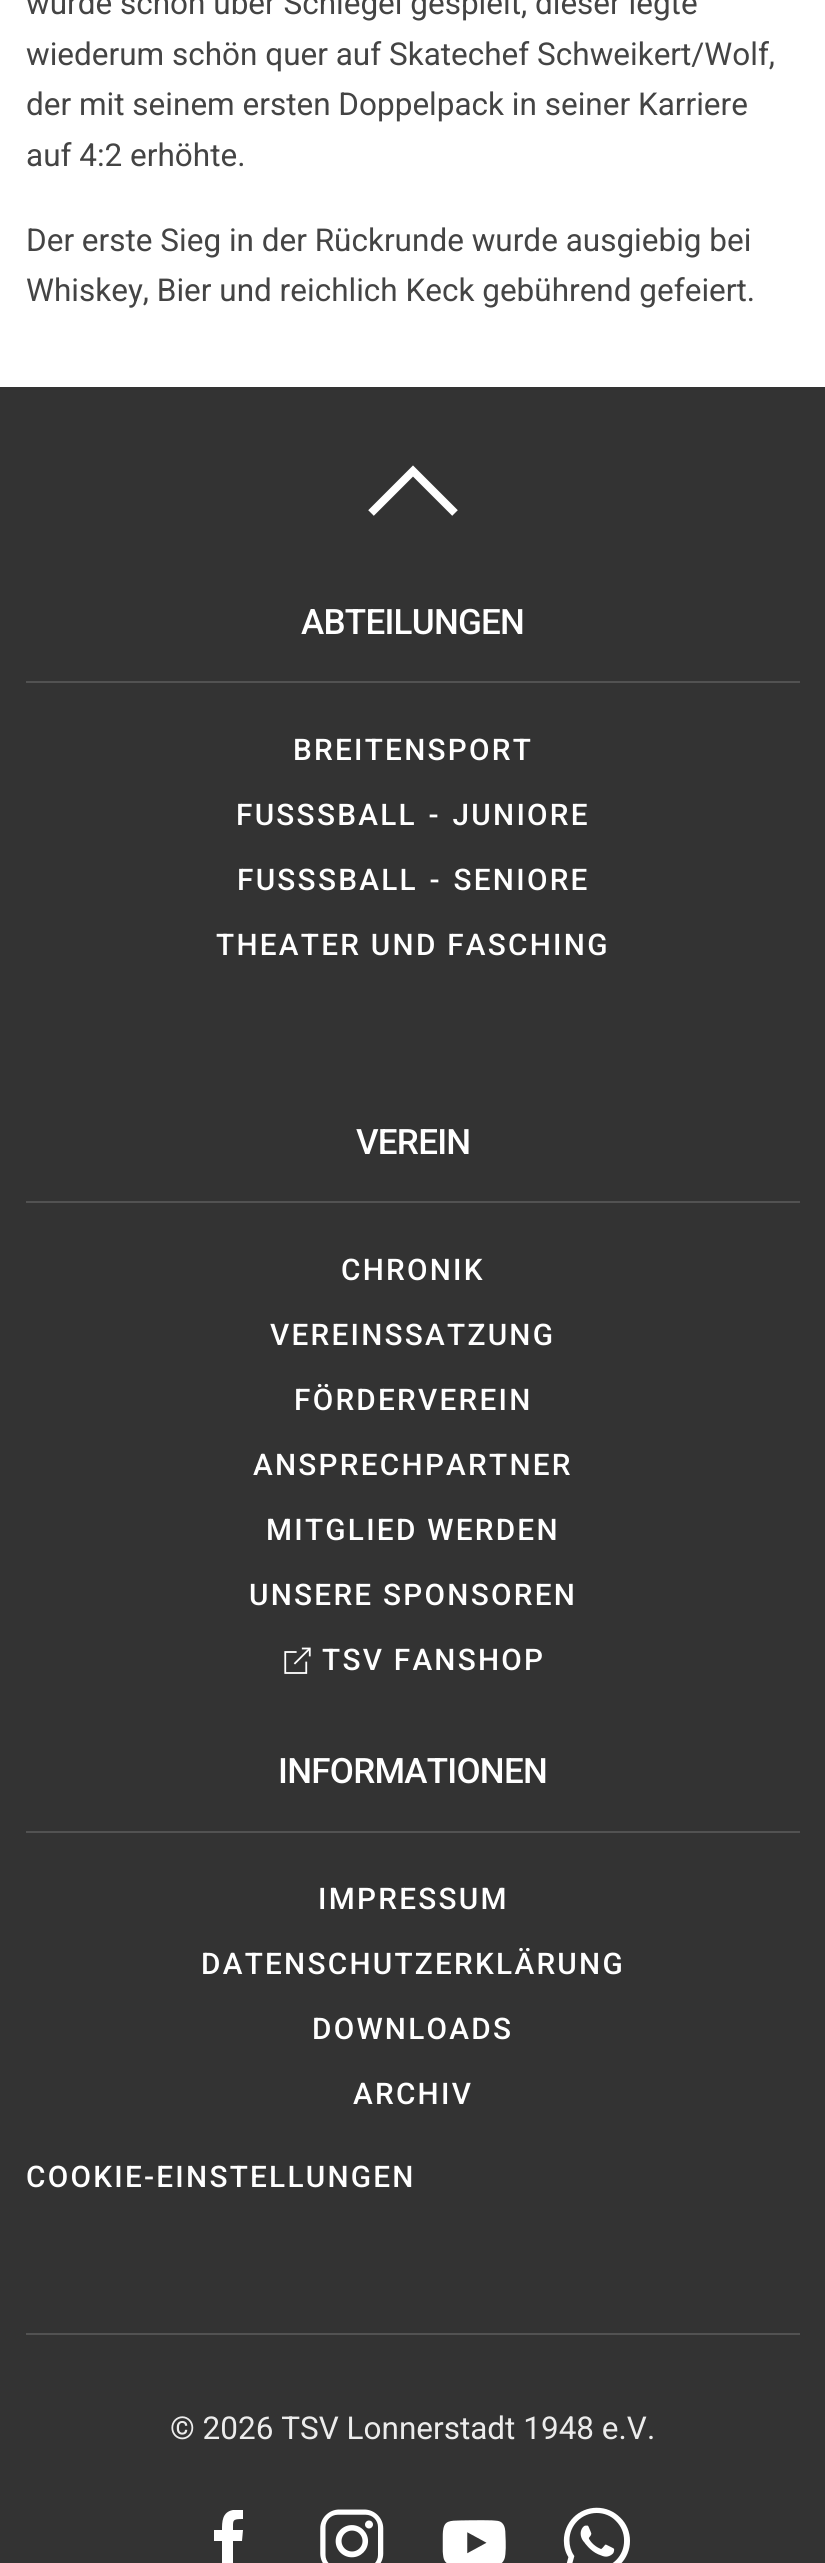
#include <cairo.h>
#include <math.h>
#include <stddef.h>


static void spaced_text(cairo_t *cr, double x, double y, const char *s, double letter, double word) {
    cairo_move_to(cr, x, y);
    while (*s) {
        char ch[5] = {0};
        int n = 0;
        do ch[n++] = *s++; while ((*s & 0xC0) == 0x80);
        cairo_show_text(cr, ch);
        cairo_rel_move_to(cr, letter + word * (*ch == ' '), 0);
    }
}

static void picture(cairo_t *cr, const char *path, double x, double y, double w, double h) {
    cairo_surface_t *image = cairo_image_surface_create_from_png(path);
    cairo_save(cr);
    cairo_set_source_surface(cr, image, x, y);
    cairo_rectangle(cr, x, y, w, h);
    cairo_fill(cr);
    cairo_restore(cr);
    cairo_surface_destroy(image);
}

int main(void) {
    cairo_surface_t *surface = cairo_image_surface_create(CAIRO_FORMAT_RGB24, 825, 2563);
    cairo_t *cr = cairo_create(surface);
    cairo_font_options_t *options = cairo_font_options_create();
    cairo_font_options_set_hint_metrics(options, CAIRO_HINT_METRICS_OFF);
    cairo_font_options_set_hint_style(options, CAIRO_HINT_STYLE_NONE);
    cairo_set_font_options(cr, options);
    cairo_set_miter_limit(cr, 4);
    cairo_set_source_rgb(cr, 1, 1, 1);
    cairo_paint(cr);
    cairo_select_font_face(cr, "Roboto", CAIRO_FONT_SLANT_NORMAL, CAIRO_FONT_WEIGHT_NORMAL);
    cairo_set_font_size(cr, 31.5);
    cairo_set_source_rgb(cr, 0.267, 0.267, 0.267);
    cairo_move_to(cr, 26, 14);
    cairo_show_text(cr, "wurde schön über Schlegel gespielt, dieser legte");
    cairo_move_to(cr, 26, 65);
    cairo_show_text(cr, "wiederum schön quer auf Skatechef Schweikert/Wolf,");
    cairo_move_to(cr, 26, 115);
    cairo_show_text(cr, "der mit seinem ersten Doppelpack in seiner Karriere");
    cairo_move_to(cr, 26, 166);
    cairo_show_text(cr, "auf 4:2 erhöhte.");
    cairo_move_to(cr, 26, 251);
    cairo_show_text(cr, "Der erste Sieg in der Rückrunde wurde ausgiebig bei");
    cairo_move_to(cr, 26, 301);
    cairo_show_text(cr, "Whiskey, Bier und reichlich Keck gebührend gefeiert.");
    cairo_set_source_rgb(cr, 0.2, 0.2, 0.2);
    cairo_rectangle(cr, 0, 387, 825, 2176);
    cairo_fill(cr);
    cairo_new_path(cr);
    cairo_move_to(cr, 371, 513);
    cairo_line_to(cr, 413, 471);
    cairo_line_to(cr, 455, 513);
    cairo_set_source_rgb(cr, 1, 1, 1);
    cairo_set_line_width(cr, 7.9);
    cairo_stroke(cr);
    cairo_select_font_face(cr, "Roboto Medium", CAIRO_FONT_SLANT_NORMAL, CAIRO_FONT_WEIGHT_NORMAL);
    cairo_set_font_size(cr, 35);
    spaced_text(cr, 301, 634, "ABTEILUNGEN", -0.75, 0);
    cairo_set_source_rgb(cr, 0.322, 0.322, 0.322);
    cairo_rectangle(cr, 26, 681, 774, 2);
    cairo_fill(cr);
    cairo_set_font_size(cr, 29.75);
    cairo_set_source_rgb(cr, 1, 1, 1);
    spaced_text(cr, 293, 760, "BREITENSPORT", 2.25, 0);
    spaced_text(cr, 236, 825, "FUSS", 2.25, 0);
    spaced_text(cr, 317, 825, "SBALL - JUNIORE", 2.25, 2);
    spaced_text(cr, 237, 890, "FUSS", 2.25, 0);
    spaced_text(cr, 318, 890, "SBALL - SENIORE", 2.25, 2);
    spaced_text(cr, 216, 955, "THEATER UND FASCHING", 2.25, 0);
    cairo_set_font_size(cr, 35);
    spaced_text(cr, 356, 1154, "VEREIN", -0.75, 0);
    cairo_set_source_rgb(cr, 0.322, 0.322, 0.322);
    cairo_rectangle(cr, 26, 1201, 774, 2);
    cairo_fill(cr);
    cairo_set_font_size(cr, 29.75);
    cairo_set_source_rgb(cr, 1, 1, 1);
    spaced_text(cr, 341, 1280, "CHRONIK", 2.25, 0);
    spaced_text(cr, 270, 1345, "VEREINSSATZUNG", 2.25, 0);
    spaced_text(cr, 294, 1410, "FÖRDERVEREIN", 2.25, 0);
    spaced_text(cr, 253, 1475, "ANSPRECHPARTNER", 2.25, 0);
    spaced_text(cr, 266, 1540, "MITGLIED WERDEN", 2.25, 0);
    spaced_text(cr, 249, 1605, "UNSERE SPONSOREN", 2.25, 0);
    picture(cr, "img1.png", 284, 1647, 27, 27);
    spaced_text(cr, 322, 1670, "TSV FANSHOP", 2.25, 0);
    cairo_set_font_size(cr, 35);
    spaced_text(cr, 278, 1783, "INFORMATIONEN", -0.75, 0);
    cairo_set_source_rgb(cr, 0.322, 0.322, 0.322);
    cairo_rectangle(cr, 26, 1831, 774, 2);
    cairo_fill(cr);
    cairo_set_font_size(cr, 29.75);
    cairo_set_source_rgb(cr, 1, 1, 1);
    spaced_text(cr, 318, 1909, "IMPRESSUM", 2.25, 0);
    spaced_text(cr, 201, 1974, "DATENSCHUTZERKLÄRUNG", 2.25, 0);
    spaced_text(cr, 312, 2039, "DOWNLOADS", 2.25, 0);
    spaced_text(cr, 353, 2104, "ARCHIV", 2.25, 0);
    spaced_text(cr, 26, 2187, "COOKIE-EINSTELLUNGEN", 2.25, 0);
    cairo_set_source_rgb(cr, 0.322, 0.322, 0.322);
    cairo_rectangle(cr, 26, 2333, 774, 2);
    cairo_fill(cr);
    cairo_select_font_face(cr, "Roboto", CAIRO_FONT_SLANT_NORMAL, CAIRO_FONT_WEIGHT_NORMAL);
    cairo_set_font_size(cr, 31.5);
    cairo_set_source_rgb(cr, 0.922, 0.922, 0.922);
    cairo_move_to(cr, 170, 2439);
    cairo_show_text(cr, "© 2026 TSV Lonnerstadt 1948 e.V.");
    cairo_set_source_rgb(cr, 1, 1, 1);
    cairo_new_path(cr);
    cairo_move_to(cr, 233, 2541);
    cairo_line_to(cr, 242, 2541);
    cairo_line_to(cr, 243, 2530);
    cairo_line_to(cr, 233, 2530);
    cairo_curve_to(cr, 233, 2520, 232, 2519, 243, 2519);
    cairo_line_to(cr, 243, 2510);
    cairo_line_to(cr, 233, 2510);
    cairo_curve_to(cr, 222, 2512, 222, 2522, 222, 2530);
    cairo_line_to(cr, 214, 2530);
    cairo_line_to(cr, 214, 2541);
    cairo_line_to(cr, 222, 2541);
    cairo_line_to(cr, 222, 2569);
    cairo_line_to(cr, 233, 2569);
    cairo_close_path(cr);
    cairo_fill(cr);
    picture(cr, "img2.png", 320, 2509, 64, 54);
    picture(cr, "img3.png", 442, 2520, 64, 43);
    picture(cr, "img4.png", 563, 2507, 67, 56);
    cairo_surface_write_to_png(surface, "page.png");
    cairo_font_options_destroy(options);
    cairo_destroy(cr);
    cairo_surface_destroy(surface);
    return 0;
}
